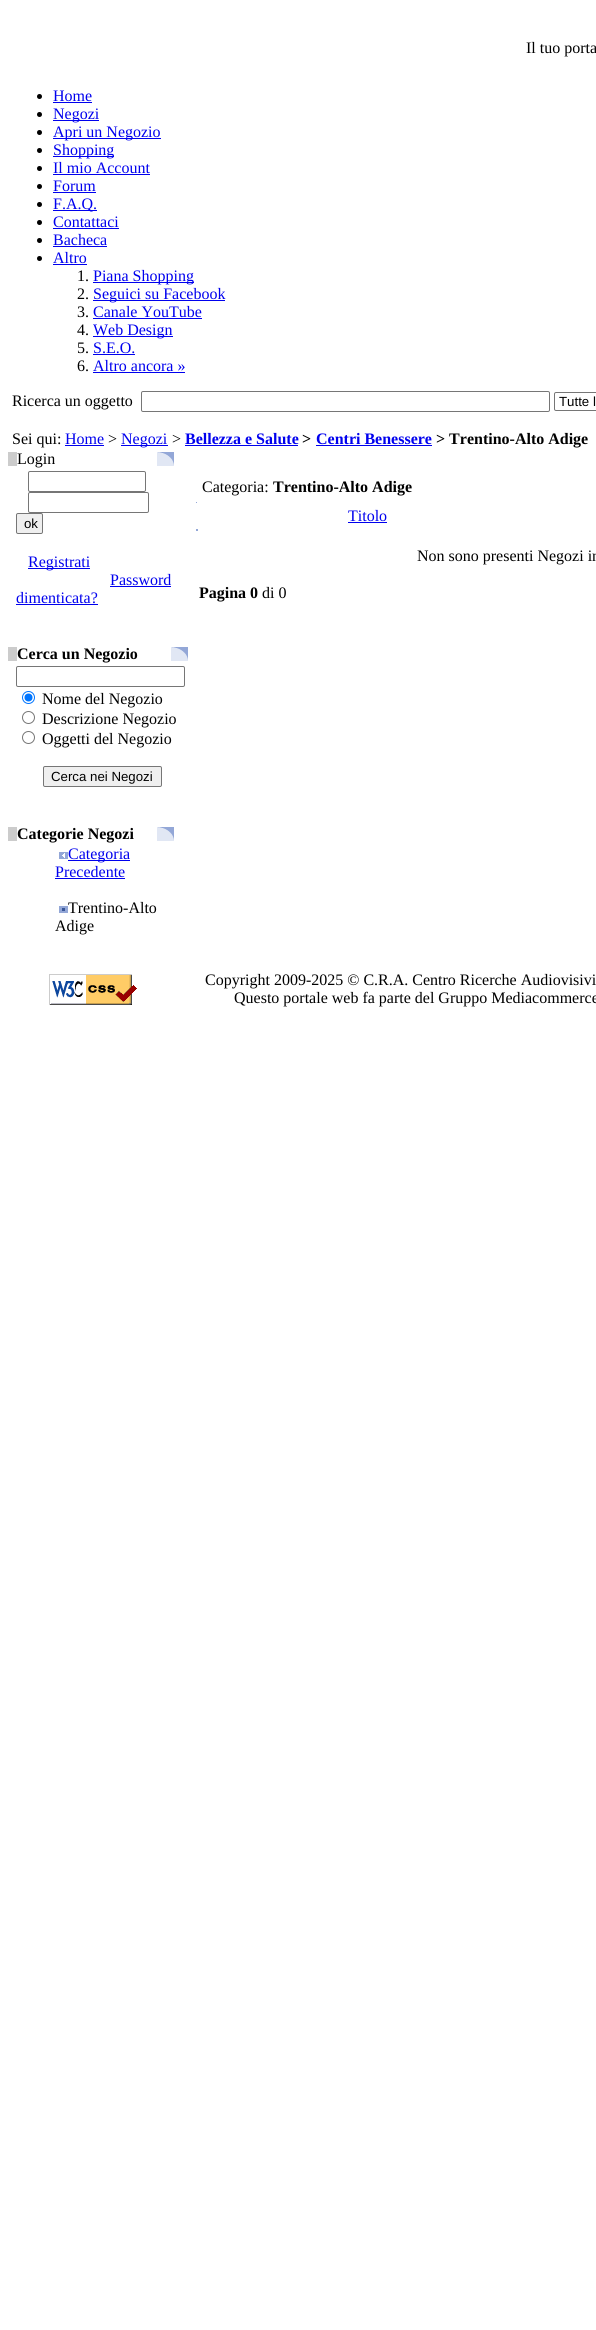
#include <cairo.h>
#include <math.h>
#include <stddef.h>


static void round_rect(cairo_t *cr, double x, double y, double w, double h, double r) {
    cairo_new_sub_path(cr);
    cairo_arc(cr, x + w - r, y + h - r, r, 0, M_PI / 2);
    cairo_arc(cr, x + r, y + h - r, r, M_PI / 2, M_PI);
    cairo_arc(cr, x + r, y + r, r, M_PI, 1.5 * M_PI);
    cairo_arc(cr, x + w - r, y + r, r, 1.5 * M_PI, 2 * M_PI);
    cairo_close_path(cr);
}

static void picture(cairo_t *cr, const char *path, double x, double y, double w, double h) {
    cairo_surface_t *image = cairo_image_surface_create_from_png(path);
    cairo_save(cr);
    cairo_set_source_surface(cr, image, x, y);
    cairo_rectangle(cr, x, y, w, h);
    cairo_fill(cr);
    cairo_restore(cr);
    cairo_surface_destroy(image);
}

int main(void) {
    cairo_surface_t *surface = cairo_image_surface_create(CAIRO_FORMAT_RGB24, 596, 2330);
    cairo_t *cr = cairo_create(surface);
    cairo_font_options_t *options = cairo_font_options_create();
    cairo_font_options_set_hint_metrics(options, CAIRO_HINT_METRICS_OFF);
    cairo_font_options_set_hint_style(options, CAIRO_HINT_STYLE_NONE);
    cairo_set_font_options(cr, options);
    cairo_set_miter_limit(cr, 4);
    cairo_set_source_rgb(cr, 1, 1, 1);
    cairo_paint(cr);
    cairo_select_font_face(cr, "Liberation Serif", CAIRO_FONT_SLANT_NORMAL, CAIRO_FONT_WEIGHT_NORMAL);
    cairo_set_font_size(cr, 16);
    cairo_set_source_rgb(cr, 0, 0, 0);
    cairo_move_to(cr, 526, 53);
    cairo_show_text(cr, "Il tuo porta");
    cairo_new_path(cr);
    cairo_arc(cr, 39.5, 96.5, 2.5, 0, 2 * M_PI);
    cairo_fill(cr);
    cairo_set_source_rgb(cr, 0, 0, 0.933);
    cairo_move_to(cr, 53, 101);
    cairo_show_text(cr, "Home");
    cairo_rectangle(cr, 53, 102, 39, 1);
    cairo_fill(cr);
    cairo_set_source_rgb(cr, 0, 0, 0);
    cairo_arc(cr, 39.5, 114.5, 2.5, 0, 2 * M_PI);
    cairo_fill(cr);
    cairo_set_source_rgb(cr, 0, 0, 0.933);
    cairo_rectangle(cr, 53, 120, 46, 1);
    cairo_fill(cr);
    cairo_move_to(cr, 53, 119);
    cairo_show_text(cr, "Negozi");
    cairo_set_source_rgb(cr, 0, 0, 0);
    cairo_new_path(cr);
    cairo_arc(cr, 39.5, 132.5, 2.5, 0, 2 * M_PI);
    cairo_fill(cr);
    cairo_set_source_rgb(cr, 0, 0, 0.933);
    cairo_rectangle(cr, 53, 138, 108, 1);
    cairo_fill(cr);
    cairo_move_to(cr, 53, 137);
    cairo_show_text(cr, "Apri un Negozio");
    cairo_set_source_rgb(cr, 0, 0, 0);
    cairo_new_path(cr);
    cairo_arc(cr, 39.5, 150.5, 2.5, 0, 2 * M_PI);
    cairo_fill(cr);
    cairo_set_source_rgb(cr, 0, 0, 0.933);
    cairo_rectangle(cr, 53, 156, 61, 1);
    cairo_fill(cr);
    cairo_move_to(cr, 53, 155);
    cairo_show_text(cr, "Shopping");
    cairo_set_source_rgb(cr, 0, 0, 0);
    cairo_new_path(cr);
    cairo_arc(cr, 39.5, 168.5, 2.5, 0, 2 * M_PI);
    cairo_fill(cr);
    cairo_set_source_rgb(cr, 0, 0, 0.933);
    cairo_move_to(cr, 53, 173);
    cairo_show_text(cr, "Il mio Account");
    cairo_rectangle(cr, 53, 174, 97, 1);
    cairo_fill(cr);
    cairo_set_source_rgb(cr, 0, 0, 0);
    cairo_arc(cr, 39.5, 186.5, 2.5, 0, 2 * M_PI);
    cairo_fill(cr);
    cairo_set_source_rgb(cr, 0, 0, 0.933);
    cairo_move_to(cr, 53, 191);
    cairo_show_text(cr, "Forum");
    cairo_rectangle(cr, 53, 192, 43, 1);
    cairo_fill(cr);
    cairo_set_source_rgb(cr, 0, 0, 0);
    cairo_arc(cr, 39.5, 204.5, 2.5, 0, 2 * M_PI);
    cairo_fill(cr);
    cairo_set_source_rgb(cr, 0, 0, 0.933);
    cairo_rectangle(cr, 53, 210, 44, 1);
    cairo_fill(cr);
    cairo_move_to(cr, 53, 209);
    cairo_show_text(cr, "F.A.Q.");
    cairo_set_source_rgb(cr, 0, 0, 0);
    cairo_new_path(cr);
    cairo_arc(cr, 39.5, 222.5, 2.5, 0, 2 * M_PI);
    cairo_fill(cr);
    cairo_set_source_rgb(cr, 0, 0, 0.933);
    cairo_move_to(cr, 53, 227);
    cairo_show_text(cr, "Contattaci");
    cairo_rectangle(cr, 53, 228, 66, 1);
    cairo_fill(cr);
    cairo_set_source_rgb(cr, 0, 0, 0);
    cairo_arc(cr, 39.5, 240.5, 2.5, 0, 2 * M_PI);
    cairo_fill(cr);
    cairo_set_source_rgb(cr, 0, 0, 0.933);
    cairo_move_to(cr, 53, 245);
    cairo_show_text(cr, "Bacheca");
    cairo_rectangle(cr, 53, 246, 54, 1);
    cairo_fill(cr);
    cairo_set_source_rgb(cr, 0, 0, 0);
    cairo_arc(cr, 39.5, 258.5, 2.5, 0, 2 * M_PI);
    cairo_fill(cr);
    cairo_set_source_rgb(cr, 0, 0, 0.933);
    cairo_move_to(cr, 53, 263);
    cairo_show_text(cr, "Altro");
    cairo_rectangle(cr, 53, 264, 34, 1);
    cairo_fill(cr);
    cairo_set_source_rgb(cr, 0, 0, 0);
    cairo_move_to(cr, 77, 281);
    cairo_show_text(cr, "1.");
    cairo_set_source_rgb(cr, 0, 0, 0.933);
    cairo_rectangle(cr, 93, 282, 101, 1);
    cairo_fill(cr);
    cairo_move_to(cr, 93, 281);
    cairo_show_text(cr, "Piana Shopping");
    cairo_set_source_rgb(cr, 0, 0, 0);
    cairo_move_to(cr, 77, 299);
    cairo_show_text(cr, "2.");
    cairo_set_source_rgb(cr, 0, 0, 0.933);
    cairo_rectangle(cr, 93, 300, 132, 1);
    cairo_fill(cr);
    cairo_move_to(cr, 93, 299);
    cairo_show_text(cr, "Seguici su Facebook");
    cairo_set_source_rgb(cr, 0, 0, 0);
    cairo_move_to(cr, 77, 317);
    cairo_show_text(cr, "3.");
    cairo_set_source_rgb(cr, 0, 0, 0.933);
    cairo_move_to(cr, 93, 317);
    cairo_show_text(cr, "Canale YouTube");
    cairo_rectangle(cr, 93, 318, 109, 1);
    cairo_fill(cr);
    cairo_set_source_rgb(cr, 0, 0, 0);
    cairo_move_to(cr, 77, 335);
    cairo_show_text(cr, "4.");
    cairo_set_source_rgb(cr, 0, 0, 0.933);
    cairo_rectangle(cr, 93, 336, 80, 1);
    cairo_fill(cr);
    cairo_move_to(cr, 93, 335);
    cairo_show_text(cr, "Web Design");
    cairo_set_source_rgb(cr, 0, 0, 0);
    cairo_move_to(cr, 77, 353);
    cairo_show_text(cr, "5.");
    cairo_set_source_rgb(cr, 0, 0, 0.933);
    cairo_move_to(cr, 93, 353);
    cairo_show_text(cr, "S.E.O.");
    cairo_rectangle(cr, 93, 354, 42, 1);
    cairo_fill(cr);
    cairo_set_source_rgb(cr, 0, 0, 0);
    cairo_move_to(cr, 77, 371);
    cairo_show_text(cr, "6.");
    cairo_set_source_rgb(cr, 0, 0, 0.933);
    cairo_move_to(cr, 93, 371);
    cairo_show_text(cr, "Altro ancora »");
    cairo_rectangle(cr, 93, 372, 92, 1);
    cairo_fill(cr);
    cairo_set_source_rgb(cr, 0, 0, 0);
    cairo_move_to(cr, 12, 406);
    cairo_show_text(cr, "Ricerca un oggetto");
    round_rect(cr, 141.5, 391.5, 408, 20, 1.5);
    cairo_set_source_rgb(cr, 0.463, 0.463, 0.463);
    cairo_set_line_width(cr, 1);
    cairo_stroke(cr);
    round_rect(cr, 554.5, 392.5, 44, 18, 1.5);
    cairo_stroke(cr);
    cairo_select_font_face(cr, "Liberation Sans", CAIRO_FONT_SLANT_NORMAL, CAIRO_FONT_WEIGHT_NORMAL);
    cairo_set_font_size(cr, 13.25);
    cairo_set_source_rgb(cr, 0, 0, 0);
    cairo_move_to(cr, 559, 406);
    cairo_show_text(cr, "Tutte l");
    cairo_select_font_face(cr, "Liberation Serif", CAIRO_FONT_SLANT_NORMAL, CAIRO_FONT_WEIGHT_NORMAL);
    cairo_set_font_size(cr, 16);
    cairo_move_to(cr, 12, 444);
    cairo_show_text(cr, "Sei qui:");
    cairo_set_source_rgb(cr, 0, 0, 0.933);
    cairo_move_to(cr, 65, 444);
    cairo_show_text(cr, "Home");
    cairo_rectangle(cr, 65, 445, 39, 1);
    cairo_fill(cr);
    cairo_set_source_rgb(cr, 0, 0, 0);
    cairo_move_to(cr, 108, 444);
    cairo_show_text(cr, ">");
    cairo_set_source_rgb(cr, 0, 0, 0.933);
    cairo_rectangle(cr, 121, 445, 47, 1);
    cairo_fill(cr);
    cairo_move_to(cr, 121, 444);
    cairo_show_text(cr, "Negozi");
    cairo_set_source_rgb(cr, 0, 0, 0);
    cairo_move_to(cr, 172, 444);
    cairo_show_text(cr, ">");
    cairo_select_font_face(cr, "Liberation Serif", CAIRO_FONT_SLANT_NORMAL, CAIRO_FONT_WEIGHT_BOLD);
    cairo_set_source_rgb(cr, 0, 0, 0.933);
    cairo_move_to(cr, 185, 444);
    cairo_show_text(cr, "Bellezza e Salute");
    cairo_rectangle(cr, 185, 445, 113, 1);
    cairo_fill(cr);
    cairo_set_source_rgb(cr, 0, 0, 0);
    cairo_move_to(cr, 302, 444);
    cairo_show_text(cr, ">");
    cairo_set_source_rgb(cr, 0, 0, 0.933);
    cairo_move_to(cr, 316, 444);
    cairo_show_text(cr, "Centri Benessere");
    cairo_rectangle(cr, 316, 445, 116, 1);
    cairo_fill(cr);
    cairo_set_source_rgb(cr, 0, 0, 0);
    cairo_move_to(cr, 436, 444);
    cairo_show_text(cr, "> Trentino-Alto Adige");
    cairo_set_source_rgb(cr, 0.8, 0.8, 0.8);
    cairo_rectangle(cr, 8, 452, 9, 14);
    cairo_fill(cr);
    cairo_select_font_face(cr, "Liberation Serif", CAIRO_FONT_SLANT_NORMAL, CAIRO_FONT_WEIGHT_NORMAL);
    cairo_set_source_rgb(cr, 0, 0, 0);
    cairo_move_to(cr, 17, 464);
    cairo_show_text(cr, "Login");
    picture(cr, "img1.png", 157, 452, 17, 14);
    round_rect(cr, 28.5, 471.5, 117, 20, 1.5);
    cairo_set_source_rgb(cr, 0.463, 0.463, 0.463);
    cairo_stroke(cr);
    round_rect(cr, 28.5, 492.5, 120, 20, 1.5);
    cairo_stroke(cr);
    cairo_set_source_rgb(cr, 0.937, 0.937, 0.937);
    round_rect(cr, 16.5, 513.5, 26, 20, 1.5);
    cairo_fill_preserve(cr);
    cairo_set_source_rgb(cr, 0.463, 0.463, 0.463);
    cairo_stroke(cr);
    cairo_select_font_face(cr, "Liberation Sans", CAIRO_FONT_SLANT_NORMAL, CAIRO_FONT_WEIGHT_NORMAL);
    cairo_set_font_size(cr, 13.25);
    cairo_set_source_rgb(cr, 0, 0, 0);
    cairo_move_to(cr, 24, 528);
    cairo_show_text(cr, "ok");
    cairo_set_source_rgb(cr, 0, 0, 0.933);
    cairo_rectangle(cr, 28, 568, 62, 1);
    cairo_fill(cr);
    cairo_select_font_face(cr, "Liberation Serif", CAIRO_FONT_SLANT_NORMAL, CAIRO_FONT_WEIGHT_NORMAL);
    cairo_set_font_size(cr, 16);
    cairo_move_to(cr, 28, 567);
    cairo_show_text(cr, "Registrati");
    cairo_move_to(cr, 110, 585);
    cairo_show_text(cr, "Password");
    cairo_rectangle(cr, 110, 586, 61, 1);
    cairo_fill(cr);
    cairo_move_to(cr, 16, 603);
    cairo_show_text(cr, "dimenticata?");
    cairo_rectangle(cr, 16, 604, 82, 1);
    cairo_fill(cr);
    cairo_set_source_rgb(cr, 0.8, 0.8, 0.8);
    cairo_rectangle(cr, 8, 647, 9, 14);
    cairo_fill(cr);
    cairo_select_font_face(cr, "Liberation Serif", CAIRO_FONT_SLANT_NORMAL, CAIRO_FONT_WEIGHT_BOLD);
    cairo_set_source_rgb(cr, 0, 0, 0);
    cairo_move_to(cr, 17, 659);
    cairo_show_text(cr, "Cerca un Negozio");
    picture(cr, "img1.png", 171, 647, 17, 14);
    round_rect(cr, 16.5, 666.5, 168, 20, 1.5);
    cairo_set_source_rgb(cr, 0.463, 0.463, 0.463);
    cairo_stroke(cr);
    cairo_arc(cr, 28.5, 697.5, 6, 0, 2 * M_PI);
    cairo_set_source_rgb(cr, 0, 0.459, 1);
    cairo_stroke(cr);
    cairo_arc(cr, 28.5, 697.5, 4, 0, 2 * M_PI);
    cairo_fill(cr);
    cairo_select_font_face(cr, "Liberation Serif", CAIRO_FONT_SLANT_NORMAL, CAIRO_FONT_WEIGHT_NORMAL);
    cairo_set_source_rgb(cr, 0, 0, 0);
    cairo_move_to(cr, 42, 704);
    cairo_show_text(cr, "Nome del Negozio");
    cairo_new_path(cr);
    cairo_arc(cr, 28.5, 717.5, 6, 0, 2 * M_PI);
    cairo_set_source_rgb(cr, 0.463, 0.463, 0.463);
    cairo_stroke(cr);
    cairo_set_source_rgb(cr, 0, 0, 0);
    cairo_move_to(cr, 42, 724);
    cairo_show_text(cr, "Descrizione Negozio");
    cairo_new_path(cr);
    cairo_arc(cr, 28.5, 737.5, 6, 0, 2 * M_PI);
    cairo_set_source_rgb(cr, 0.463, 0.463, 0.463);
    cairo_stroke(cr);
    cairo_set_source_rgb(cr, 0, 0, 0);
    cairo_move_to(cr, 42, 744);
    cairo_show_text(cr, "Oggetti del Negozio");
    cairo_set_source_rgb(cr, 0.937, 0.937, 0.937);
    round_rect(cr, 43.5, 766.5, 118, 20, 1.5);
    cairo_fill_preserve(cr);
    cairo_set_source_rgb(cr, 0.463, 0.463, 0.463);
    cairo_stroke(cr);
    cairo_select_font_face(cr, "Liberation Sans", CAIRO_FONT_SLANT_NORMAL, CAIRO_FONT_WEIGHT_NORMAL);
    cairo_set_font_size(cr, 13.25);
    cairo_set_source_rgb(cr, 0, 0, 0);
    cairo_move_to(cr, 51, 781);
    cairo_show_text(cr, "Cerca nei Negozi");
    cairo_set_source_rgb(cr, 0.8, 0.8, 0.8);
    cairo_rectangle(cr, 8, 827, 9, 14);
    cairo_fill(cr);
    cairo_select_font_face(cr, "Liberation Serif", CAIRO_FONT_SLANT_NORMAL, CAIRO_FONT_WEIGHT_BOLD);
    cairo_set_font_size(cr, 16);
    cairo_set_source_rgb(cr, 0, 0, 0);
    cairo_move_to(cr, 17, 839);
    cairo_show_text(cr, "Categorie Negozi");
    picture(cr, "img1.png", 157, 827, 17, 14);
    picture(cr, "img2.png", 59, 852, 9, 7);
    cairo_set_source_rgb(cr, 0, 0, 0.933);
    cairo_rectangle(cr, 68, 860, 62, 1);
    cairo_fill(cr);
    cairo_select_font_face(cr, "Liberation Serif", CAIRO_FONT_SLANT_NORMAL, CAIRO_FONT_WEIGHT_NORMAL);
    cairo_move_to(cr, 68, 859);
    cairo_show_text(cr, "Categoria");
    cairo_move_to(cr, 55, 877);
    cairo_show_text(cr, "Precedente");
    cairo_rectangle(cr, 55, 878, 70, 1);
    cairo_fill(cr);
    picture(cr, "img3.png", 59, 906, 9, 7);
    cairo_set_source_rgb(cr, 0, 0, 0);
    cairo_move_to(cr, 68, 913);
    cairo_show_text(cr, "Trentino-Alto");
    cairo_move_to(cr, 55, 931);
    cairo_show_text(cr, "Adige");
    cairo_move_to(cr, 202, 492);
    cairo_show_text(cr, "Categoria:");
    cairo_select_font_face(cr, "Liberation Serif", CAIRO_FONT_SLANT_NORMAL, CAIRO_FONT_WEIGHT_BOLD);
    cairo_move_to(cr, 273, 492);
    cairo_show_text(cr, "Trentino-Alto Adige");
    cairo_set_source_rgb(cr, 0.576, 0.655, 0.843);
    cairo_rectangle(cr, 196, 502, 1, 1);
    cairo_fill(cr);
    cairo_select_font_face(cr, "Liberation Serif", CAIRO_FONT_SLANT_NORMAL, CAIRO_FONT_WEIGHT_NORMAL);
    cairo_set_source_rgb(cr, 0, 0, 0.933);
    cairo_move_to(cr, 348, 521);
    cairo_show_text(cr, "Titolo");
    cairo_rectangle(cr, 348, 522, 39, 1);
    cairo_fill(cr);
    cairo_set_source_rgb(cr, 0.576, 0.655, 0.843);
    cairo_rectangle(cr, 196, 529, 2, 2);
    cairo_fill(cr);
    cairo_set_source_rgb(cr, 0, 0, 0);
    cairo_move_to(cr, 417, 561);
    cairo_show_text(cr, "Non sono presenti Negozi in");
    cairo_select_font_face(cr, "Liberation Serif", CAIRO_FONT_SLANT_NORMAL, CAIRO_FONT_WEIGHT_BOLD);
    cairo_move_to(cr, 199, 598);
    cairo_show_text(cr, "Pagina 0");
    cairo_select_font_face(cr, "Liberation Serif", CAIRO_FONT_SLANT_NORMAL, CAIRO_FONT_WEIGHT_NORMAL);
    cairo_move_to(cr, 262, 598);
    cairo_show_text(cr, "di 0");
    picture(cr, "img4.png", 49, 974, 88, 31);
    cairo_move_to(cr, 205, 985);
    cairo_show_text(cr, "Copyright 2009-2025 © C.R.A. Centro Ricerche Audiovisivi");
    cairo_move_to(cr, 234, 1003);
    cairo_show_text(cr, "Questo portale web fa parte del Gruppo Mediacommerce");
    cairo_surface_write_to_png(surface, "page.png");
    cairo_font_options_destroy(options);
    cairo_destroy(cr);
    cairo_surface_destroy(surface);
    return 0;
}
